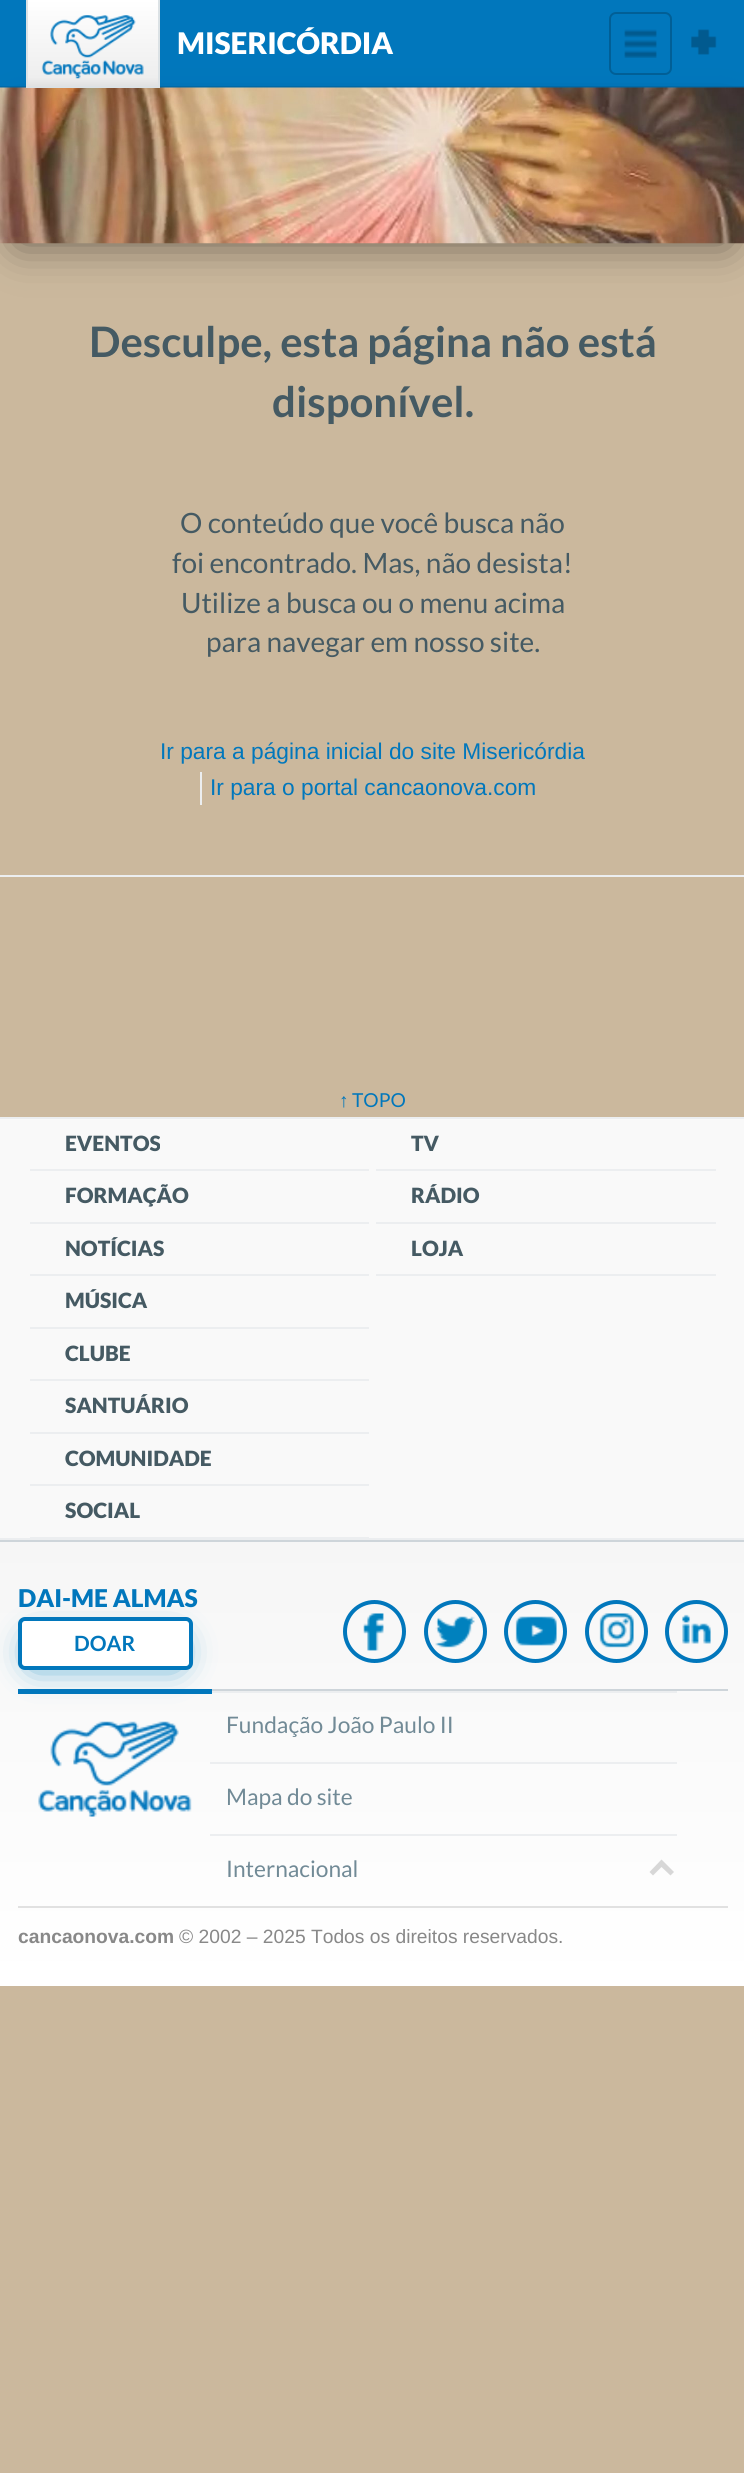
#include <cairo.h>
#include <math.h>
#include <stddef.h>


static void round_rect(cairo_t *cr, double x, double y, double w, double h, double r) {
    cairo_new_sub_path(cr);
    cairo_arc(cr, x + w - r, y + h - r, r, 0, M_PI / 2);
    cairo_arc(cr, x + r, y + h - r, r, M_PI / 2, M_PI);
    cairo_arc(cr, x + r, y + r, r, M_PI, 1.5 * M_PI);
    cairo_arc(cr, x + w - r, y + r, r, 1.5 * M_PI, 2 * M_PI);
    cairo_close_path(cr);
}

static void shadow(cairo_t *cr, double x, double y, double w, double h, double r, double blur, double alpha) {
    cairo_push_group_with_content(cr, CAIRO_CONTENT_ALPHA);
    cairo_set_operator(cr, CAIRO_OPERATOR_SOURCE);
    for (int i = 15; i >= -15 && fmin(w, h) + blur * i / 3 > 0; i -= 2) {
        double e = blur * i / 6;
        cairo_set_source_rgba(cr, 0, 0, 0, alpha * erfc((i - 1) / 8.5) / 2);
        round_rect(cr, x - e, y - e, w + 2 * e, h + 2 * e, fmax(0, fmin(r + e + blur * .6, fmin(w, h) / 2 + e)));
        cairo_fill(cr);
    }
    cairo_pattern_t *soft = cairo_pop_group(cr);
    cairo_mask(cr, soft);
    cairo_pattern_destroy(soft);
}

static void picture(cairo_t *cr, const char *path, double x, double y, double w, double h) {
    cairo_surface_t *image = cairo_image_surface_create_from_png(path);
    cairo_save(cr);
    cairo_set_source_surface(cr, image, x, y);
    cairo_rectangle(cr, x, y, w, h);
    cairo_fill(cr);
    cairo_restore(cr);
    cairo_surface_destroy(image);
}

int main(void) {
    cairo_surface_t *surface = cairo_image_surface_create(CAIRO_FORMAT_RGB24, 744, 2473);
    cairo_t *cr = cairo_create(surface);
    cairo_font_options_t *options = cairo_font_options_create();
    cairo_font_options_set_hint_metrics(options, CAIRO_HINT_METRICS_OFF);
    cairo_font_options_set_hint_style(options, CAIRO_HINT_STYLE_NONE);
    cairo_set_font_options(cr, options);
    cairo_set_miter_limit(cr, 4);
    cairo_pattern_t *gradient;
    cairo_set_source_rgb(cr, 0.796, 0.722, 0.616);
    cairo_paint(cr);
    cairo_set_source_rgb(cr, 0.004, 0.467, 0.737);
    cairo_rectangle(cr, 0, 0, 744, 88);
    cairo_fill(cr);
    cairo_set_source_rgb(cr, 0, 0, 0);
    shadow(cr, 18, 123, 710, 120, 0, 22, 0.5);
    cairo_set_source_rgba(cr, 0, 0, 0, 0.1);
    cairo_rectangle(cr, 0, 86, 744, 2);
    cairo_fill(cr);
    gradient = cairo_pattern_create_linear(93, 0, 93, 86);
    cairo_pattern_add_color_stop_rgba(gradient, 0, 1, 1, 1, 1);
    cairo_pattern_add_color_stop_rgba(gradient, 0.9, 0.933, 0.933, 0.933, 1);
    cairo_pattern_add_color_stop_rgba(gradient, 1, 0.882, 0.882, 0.882, 1);
    cairo_set_source(cr, gradient);
    cairo_pattern_destroy(gradient);
    cairo_rectangle(cr, 28, 0, 130, 86);
    cairo_fill(cr);
    picture(cr, "img4.png", 0, 87, 744, 157);
    cairo_set_source_rgb(cr, 0.863, 0.886, 0.898);
    cairo_rectangle(cr, 158, 0, 2, 88);
    cairo_fill(cr);
    cairo_rectangle(cr, 26, 86, 133, 2);
    cairo_fill(cr);
    cairo_rectangle(cr, 26, 0, 2, 88);
    cairo_fill(cr);
    picture(cr, "img1.png", 41, 15, 103, 64);
    cairo_select_font_face(cr, "Lato Black", CAIRO_FONT_SLANT_NORMAL, CAIRO_FONT_WEIGHT_NORMAL);
    cairo_set_font_size(cr, 29.75);
    cairo_set_source_rgb(cr, 1, 1, 1);
    cairo_move_to(cr, 177, 54);
    cairo_show_text(cr, "MISERICÓRDIA");
    picture(cr, "img2.png", 624, 29, 33, 29);
    round_rect(cr, 610, 13, 61, 61, 6);
    cairo_set_source_rgb(cr, 0.004, 0.373, 0.588);
    cairo_stroke(cr);
    picture(cr, "img3.png", 691, 29, 26, 26);
    cairo_set_source_rgb(cr, 0.922, 0.933, 0.941);
    cairo_rectangle(cr, 0, 875, 744, 2);
    cairo_fill(cr);
    cairo_select_font_face(cr, "Lato", CAIRO_FONT_SLANT_NORMAL, CAIRO_FONT_WEIGHT_BOLD);
    cairo_set_font_size(cr, 42);
    cairo_set_source_rgb(cr, 0.271, 0.353, 0.388);
    cairo_move_to(cr, 89, 357);
    cairo_show_text(cr, "Desculpe, esta página não está");
    cairo_move_to(cr, 272, 417);
    cairo_show_text(cr, "disponível.");
    cairo_select_font_face(cr, "Lato", CAIRO_FONT_SLANT_NORMAL, CAIRO_FONT_WEIGHT_NORMAL);
    cairo_set_font_size(cr, 28);
    cairo_move_to(cr, 180, 533);
    cairo_show_text(cr, "O conteúdo que você busca não");
    cairo_move_to(cr, 172, 573);
    cairo_show_text(cr, "foi encontrado. Mas, não desista!");
    cairo_move_to(cr, 181, 613);
    cairo_show_text(cr, "Utilize a busca ou o menu acima");
    cairo_move_to(cr, 206, 652);
    cairo_show_text(cr, "para navegar em nosso site.");
    cairo_select_font_face(cr, "Liberation Sans", CAIRO_FONT_SLANT_NORMAL, CAIRO_FONT_WEIGHT_NORMAL);
    cairo_set_font_size(cr, 22.75);
    cairo_set_source_rgb(cr, 0.004, 0.467, 0.737);
    cairo_move_to(cr, 160, 759);
    cairo_show_text(cr, "Ir para a página inicial do site Misericórdia");
    cairo_set_source_rgb(cr, 0.922, 0.933, 0.941);
    cairo_rectangle(cr, 200, 772, 2, 33);
    cairo_fill(cr);
    cairo_set_source_rgb(cr, 0.004, 0.467, 0.737);
    cairo_move_to(cr, 210, 795);
    cairo_show_text(cr, "Ir para o portal cancaonova.com");
    cairo_set_font_size(cr, 19.25);
    cairo_move_to(cr, 339, 1107);
    cairo_show_text(cr, "↑");
    cairo_select_font_face(cr, "Lato", CAIRO_FONT_SLANT_NORMAL, CAIRO_FONT_WEIGHT_NORMAL);
    cairo_move_to(cr, 352, 1107);
    cairo_show_text(cr, "TOPO");
    cairo_set_source_rgb(cr, 0.976, 0.976, 0.976);
    cairo_rectangle(cr, 0, 1119, 744, 419);
    cairo_fill(cr);
    cairo_set_source_rgb(cr, 0.922, 0.933, 0.941);
    cairo_rectangle(cr, 0, 1117, 744, 2);
    cairo_fill(cr);
    cairo_rectangle(cr, 0, 1538, 744, 2);
    cairo_fill(cr);
    cairo_rectangle(cr, 30, 1169, 339, 2);
    cairo_fill(cr);
    cairo_select_font_face(cr, "Lato Black", CAIRO_FONT_SLANT_NORMAL, CAIRO_FONT_WEIGHT_NORMAL);
    cairo_set_font_size(cr, 21);
    cairo_set_source_rgb(cr, 0.271, 0.353, 0.388);
    cairo_move_to(cr, 65, 1151);
    cairo_show_text(cr, "EVENTOS");
    cairo_set_source_rgb(cr, 0.922, 0.933, 0.941);
    cairo_rectangle(cr, 30, 1222, 339, 2);
    cairo_fill(cr);
    cairo_set_source_rgb(cr, 0.271, 0.353, 0.388);
    cairo_move_to(cr, 65, 1203);
    cairo_show_text(cr, "FORMAÇÃO");
    cairo_set_source_rgb(cr, 0.922, 0.933, 0.941);
    cairo_rectangle(cr, 30, 1274, 339, 2);
    cairo_fill(cr);
    cairo_set_source_rgb(cr, 0.271, 0.353, 0.388);
    cairo_move_to(cr, 65, 1256);
    cairo_show_text(cr, "NOTÍCIAS");
    cairo_set_source_rgb(cr, 0.922, 0.933, 0.941);
    cairo_rectangle(cr, 30, 1327, 339, 2);
    cairo_fill(cr);
    cairo_set_source_rgb(cr, 0.271, 0.353, 0.388);
    cairo_move_to(cr, 65, 1308);
    cairo_show_text(cr, "MÚSICA");
    cairo_set_source_rgb(cr, 0.922, 0.933, 0.941);
    cairo_rectangle(cr, 30, 1379, 339, 2);
    cairo_fill(cr);
    cairo_set_source_rgb(cr, 0.271, 0.353, 0.388);
    cairo_move_to(cr, 65, 1361);
    cairo_show_text(cr, "CLUBE");
    cairo_set_source_rgb(cr, 0.922, 0.933, 0.941);
    cairo_rectangle(cr, 30, 1432, 339, 2);
    cairo_fill(cr);
    cairo_set_source_rgb(cr, 0.271, 0.353, 0.388);
    cairo_move_to(cr, 65, 1413);
    cairo_show_text(cr, "SANTUÁRIO");
    cairo_set_source_rgb(cr, 0.922, 0.933, 0.941);
    cairo_rectangle(cr, 30, 1484, 339, 2);
    cairo_fill(cr);
    cairo_set_source_rgb(cr, 0.271, 0.353, 0.388);
    cairo_move_to(cr, 65, 1466);
    cairo_show_text(cr, "COMUNIDADE");
    cairo_set_source_rgb(cr, 0.922, 0.933, 0.941);
    cairo_rectangle(cr, 30, 1537, 339, 1);
    cairo_fill(cr);
    cairo_set_source_rgb(cr, 0.271, 0.353, 0.388);
    cairo_move_to(cr, 65, 1518);
    cairo_show_text(cr, "SOCIAL");
    cairo_set_source_rgb(cr, 0.922, 0.933, 0.941);
    cairo_rectangle(cr, 376, 1169, 340, 2);
    cairo_fill(cr);
    cairo_set_source_rgb(cr, 0.271, 0.353, 0.388);
    cairo_move_to(cr, 411, 1151);
    cairo_show_text(cr, "TV");
    cairo_set_source_rgb(cr, 0.922, 0.933, 0.941);
    cairo_rectangle(cr, 376, 1222, 340, 2);
    cairo_fill(cr);
    cairo_set_source_rgb(cr, 0.271, 0.353, 0.388);
    cairo_move_to(cr, 411, 1203);
    cairo_show_text(cr, "RÁDIO");
    cairo_set_source_rgb(cr, 0.922, 0.933, 0.941);
    cairo_rectangle(cr, 376, 1274, 340, 2);
    cairo_fill(cr);
    cairo_set_source_rgb(cr, 0.271, 0.353, 0.388);
    cairo_move_to(cr, 411, 1256);
    cairo_show_text(cr, "LOJA");
    gradient = cairo_pattern_create_linear(373, 1542, 373, 1986);
    cairo_pattern_add_color_stop_rgba(gradient, 0, 0.965, 0.965, 0.965, 1);
    cairo_pattern_add_color_stop_rgba(gradient, 1, 1, 1, 1, 1);
    cairo_set_source(cr, gradient);
    cairo_pattern_destroy(gradient);
    cairo_rectangle(cr, 0, 1542, 744, 444);
    cairo_fill(cr);
    cairo_set_source_rgb(cr, 0.808, 0.835, 0.855);
    cairo_rectangle(cr, 0, 1540, 744, 2);
    cairo_fill(cr);
    cairo_set_font_size(cr, 24.5);
    cairo_set_source_rgb(cr, 0.004, 0.467, 0.737);
    cairo_move_to(cr, 18, 1607);
    cairo_show_text(cr, "DAI-ME ALMAS");
    cairo_set_source_rgb(cr, 0, 0.51, 0.753);
    shadow(cr, 35, 1643, 140, 18, 0, 17.5, 1);
    cairo_set_source_rgb(cr, 1, 1, 1);
    round_rect(cr, 20, 1619, 171, 49, 5);
    cairo_fill_preserve(cr);
    cairo_set_source_rgb(cr, 0.004, 0.467, 0.737);
    cairo_set_line_width(cr, 4);
    cairo_stroke(cr);
    cairo_select_font_face(cr, "Lato", CAIRO_FONT_SLANT_NORMAL, CAIRO_FONT_WEIGHT_BOLD);
    cairo_set_font_size(cr, 21);
    cairo_move_to(cr, 74, 1651);
    cairo_show_text(cr, "DOAR");
    cairo_new_path(cr);
    cairo_arc(cr, 374.5, 1631.5, 29.5, 0, 2 * M_PI);
    cairo_stroke(cr);
    picture(cr, "img5.png", 363, 1613, 21, 38);
    cairo_arc(cr, 455.5, 1631.5, 29.5, 0, 2 * M_PI);
    cairo_stroke(cr);
    picture(cr, "img6.png", 435, 1616, 40, 32);
    cairo_arc(cr, 535.5, 1631.5, 29.5, 0, 2 * M_PI);
    cairo_stroke(cr);
    picture(cr, "img7.png", 515, 1616, 42, 30);
    cairo_arc(cr, 616.5, 1631.5, 29.5, 0, 2 * M_PI);
    cairo_stroke(cr);
    picture(cr, "img8.png", 599, 1613, 35, 35);
    cairo_arc(cr, 696.5, 1631.5, 29.5, 0, 2 * M_PI);
    cairo_stroke(cr);
    picture(cr, "img9.png", 682, 1614, 29, 30);
    picture(cr, "img10.png", 38, 1721, 154, 96);
    cairo_set_source_rgb(cr, 0.922, 0.933, 0.941);
    cairo_rectangle(cr, 210, 1691, 467, 2);
    cairo_fill(cr);
    cairo_set_source_rgb(cr, 0.004, 0.467, 0.737);
    cairo_rectangle(cr, 18, 1689, 194, 5);
    cairo_fill(cr);
    cairo_set_source_rgb(cr, 0.808, 0.835, 0.855);
    cairo_rectangle(cr, 212, 1689, 516, 2);
    cairo_fill(cr);
    cairo_select_font_face(cr, "Lato", CAIRO_FONT_SLANT_NORMAL, CAIRO_FONT_WEIGHT_NORMAL);
    cairo_set_font_size(cr, 22.75);
    cairo_set_source_rgb(cr, 0.443, 0.541, 0.588);
    cairo_move_to(cr, 226, 1733);
    cairo_show_text(cr, "Fundação João Paulo II");
    cairo_set_source_rgb(cr, 0.922, 0.933, 0.941);
    cairo_rectangle(cr, 210, 1762, 467, 2);
    cairo_fill(cr);
    cairo_set_source_rgb(cr, 0.443, 0.541, 0.588);
    cairo_move_to(cr, 226, 1805);
    cairo_show_text(cr, "Mapa do site");
    cairo_set_source_rgb(cr, 0.922, 0.933, 0.941);
    cairo_rectangle(cr, 210, 1834, 467, 2);
    cairo_fill(cr);
    cairo_set_source_rgb(cr, 0.443, 0.541, 0.588);
    cairo_move_to(cr, 226, 1877);
    cairo_show_text(cr, "Internacional");
    cairo_set_source_rgb(cr, 0.843, 0.843, 0.843);
    cairo_new_path(cr);
    cairo_move_to(cr, 649.5, 1872);
    cairo_line_to(cr, 653, 1875.5);
    cairo_line_to(cr, 661.5, 1867);
    cairo_line_to(cr, 670.5, 1875.5);
    cairo_line_to(cr, 674, 1872);
    cairo_line_to(cr, 661.5, 1859.5);
    cairo_close_path(cr);
    cairo_fill(cr);
    cairo_set_source_rgb(cr, 0.882, 0.882, 0.882);
    cairo_rectangle(cr, 18, 1906, 710, 2);
    cairo_fill(cr);
    cairo_select_font_face(cr, "Liberation Sans", CAIRO_FONT_SLANT_NORMAL, CAIRO_FONT_WEIGHT_BOLD);
    cairo_set_font_size(cr, 19.25);
    cairo_set_source_rgb(cr, 0.533, 0.533, 0.533);
    cairo_move_to(cr, 18, 1943);
    cairo_show_text(cr, "cancaonova.com");
    cairo_select_font_face(cr, "Liberation Sans", CAIRO_FONT_SLANT_NORMAL, CAIRO_FONT_WEIGHT_NORMAL);
    cairo_move_to(cr, 179, 1943);
    cairo_show_text(cr, "© 2002 – 2025 Todos os direitos reservados.");
    cairo_surface_write_to_png(surface, "page.png");
    cairo_font_options_destroy(options);
    cairo_destroy(cr);
    cairo_surface_destroy(surface);
    return 0;
}
